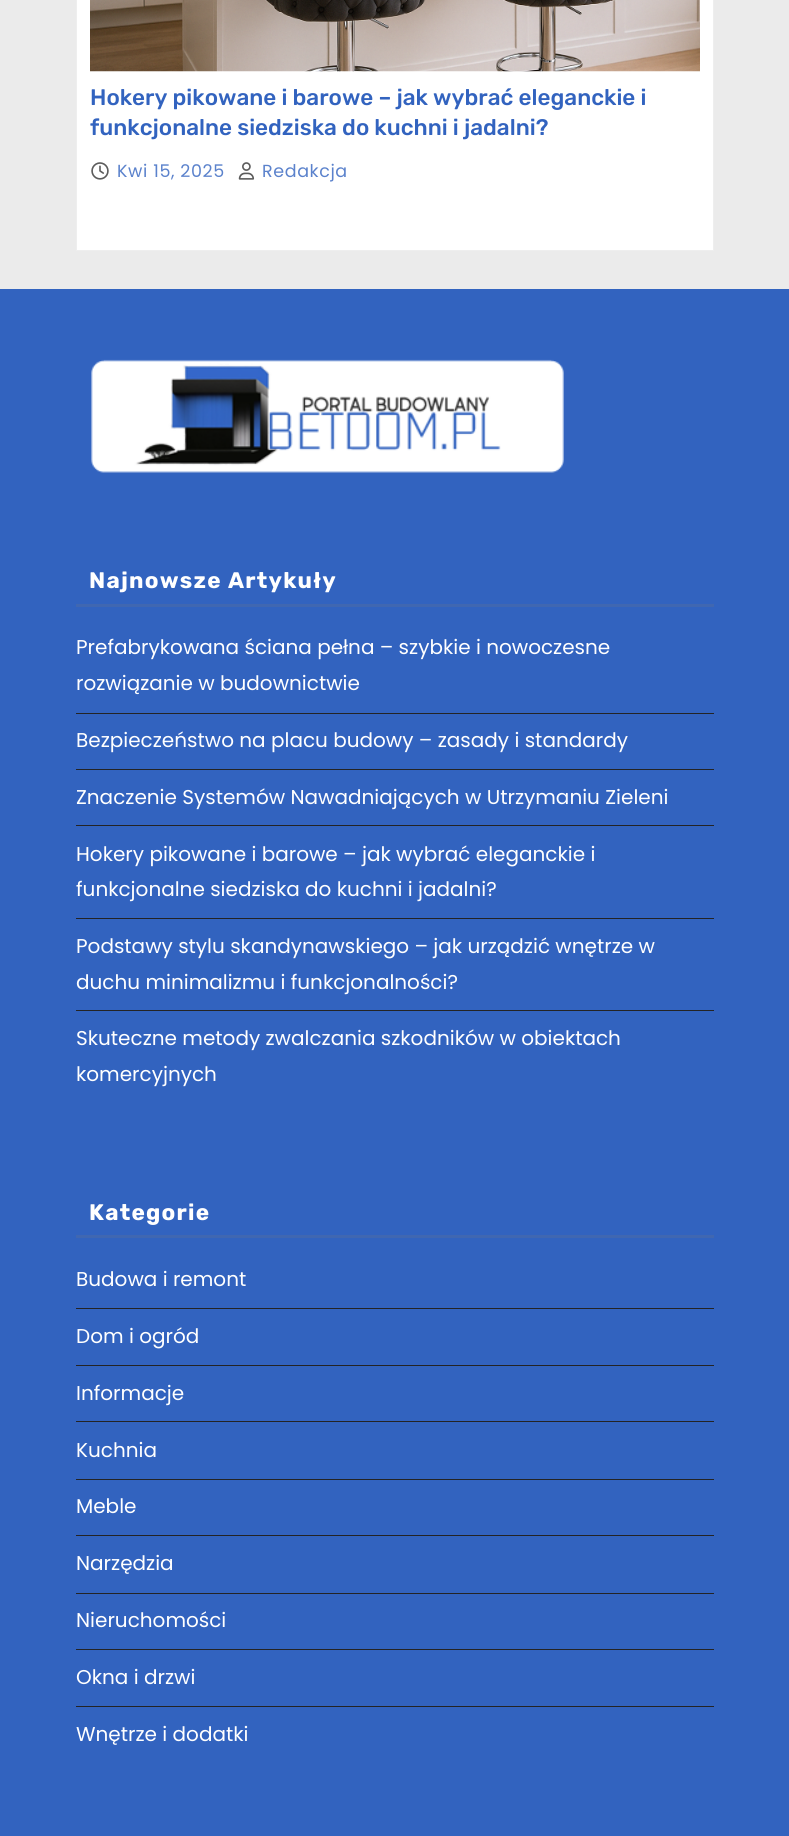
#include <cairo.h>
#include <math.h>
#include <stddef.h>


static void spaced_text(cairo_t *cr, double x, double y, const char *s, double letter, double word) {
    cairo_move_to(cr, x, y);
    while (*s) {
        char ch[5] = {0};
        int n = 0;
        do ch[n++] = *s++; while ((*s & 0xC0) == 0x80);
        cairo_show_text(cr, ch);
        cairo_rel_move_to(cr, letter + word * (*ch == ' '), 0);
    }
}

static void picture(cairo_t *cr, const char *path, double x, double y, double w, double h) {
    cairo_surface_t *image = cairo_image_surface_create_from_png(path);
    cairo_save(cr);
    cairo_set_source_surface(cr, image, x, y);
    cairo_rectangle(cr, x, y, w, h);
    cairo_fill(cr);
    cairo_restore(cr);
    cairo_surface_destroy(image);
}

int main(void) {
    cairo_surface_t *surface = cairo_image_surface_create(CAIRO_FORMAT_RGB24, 789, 1836);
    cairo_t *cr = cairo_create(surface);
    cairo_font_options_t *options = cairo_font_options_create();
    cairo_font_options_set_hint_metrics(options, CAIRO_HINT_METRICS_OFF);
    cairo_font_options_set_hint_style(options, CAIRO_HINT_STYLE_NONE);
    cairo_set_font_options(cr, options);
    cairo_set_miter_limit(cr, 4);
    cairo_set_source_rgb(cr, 0.918, 0.918, 0.918);
    cairo_paint(cr);
    cairo_set_source_rgb(cr, 1, 1, 1);
    cairo_rectangle(cr, 76.5, -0.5, 637, 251);
    cairo_fill_preserve(cr);
    cairo_set_source_rgb(cr, 0.933, 0.933, 0.933);
    cairo_set_line_width(cr, 1);
    cairo_stroke(cr);
    picture(cr, "img1.png", 90, 0, 610, 72);
    cairo_select_font_face(cr, "Rubik Medium", CAIRO_FONT_SLANT_NORMAL, CAIRO_FONT_WEIGHT_NORMAL);
    cairo_set_font_size(cr, 22.5);
    cairo_set_source_rgb(cr, 0.196, 0.388, 0.749);
    cairo_move_to(cr, 90, 105);
    cairo_show_text(cr, "Hokery pikowane i barowe – jak wybrać eleganckie i");
    cairo_move_to(cr, 90, 135);
    cairo_show_text(cr, "funkcjonalne siedziska do kuchni i jadalni?");
    picture(cr, "img2.png", 91, 162, 18, 18);
    cairo_select_font_face(cr, "Poppins", CAIRO_FONT_SLANT_NORMAL, CAIRO_FONT_WEIGHT_NORMAL);
    cairo_set_font_size(cr, 17.5);
    cairo_set_source_rgb(cr, 0.357, 0.51, 0.8);
    spaced_text(cr, 117, 177, "Kwi 15, 2025", 0.6, 0);
    picture(cr, "img3.png", 238, 162, 17, 18);
    spaced_text(cr, 262, 177, "Redakcja", 0.6, 0);
    cairo_set_source_rgb(cr, 0.196, 0.388, 0.749);
    cairo_rectangle(cr, 0, 289, 789, 1547);
    cairo_fill(cr);
    picture(cr, "img4.png", 91, 359, 473, 114);
    cairo_set_source_rgb(cr, 0.251, 0.404, 0.694);
    cairo_rectangle(cr, 76, 604, 638, 3);
    cairo_fill(cr);
    cairo_select_font_face(cr, "Rubik", CAIRO_FONT_SLANT_NORMAL, CAIRO_FONT_WEIGHT_BOLD);
    cairo_set_font_size(cr, 22.5);
    cairo_set_source_rgb(cr, 1, 1, 1);
    spaced_text(cr, 89, 588, "Najnowsze Artykuły", 1.25, 0);
    cairo_set_source_rgb(cr, 0.141, 0.141, 0.145);
    cairo_rectangle(cr, 76, 713, 638, 1);
    cairo_fill(cr);
    cairo_select_font_face(cr, "Poppins", CAIRO_FONT_SLANT_NORMAL, CAIRO_FONT_WEIGHT_NORMAL);
    cairo_set_font_size(cr, 20);
    cairo_set_source_rgb(cr, 1, 1, 1);
    cairo_move_to(cr, 76, 654);
    cairo_show_text(cr, "Prefabrykowana ściana pełna – szybkie i nowoczesne");
    cairo_move_to(cr, 76, 690);
    cairo_show_text(cr, "rozwiązanie w budownictwie");
    cairo_set_source_rgb(cr, 0.141, 0.141, 0.145);
    cairo_rectangle(cr, 76, 769, 638, 1);
    cairo_fill(cr);
    cairo_set_source_rgb(cr, 1, 1, 1);
    cairo_move_to(cr, 76, 747);
    cairo_show_text(cr, "Bezpieczeństwo na placu budowy – zasady i standardy");
    cairo_set_source_rgb(cr, 0.141, 0.141, 0.145);
    cairo_rectangle(cr, 76, 825, 638, 1);
    cairo_fill(cr);
    cairo_set_source_rgb(cr, 1, 1, 1);
    cairo_move_to(cr, 76, 804);
    cairo_show_text(cr, "Znaczenie Systemów Nawadniających w Utrzymaniu Zieleni");
    cairo_set_source_rgb(cr, 0.141, 0.141, 0.145);
    cairo_rectangle(cr, 76, 918, 638, 1);
    cairo_fill(cr);
    cairo_set_source_rgb(cr, 1, 1, 1);
    cairo_move_to(cr, 76, 861);
    cairo_show_text(cr, "Hokery pikowane i barowe – jak wybrać eleganckie i");
    cairo_move_to(cr, 76, 896);
    cairo_show_text(cr, "funkcjonalne siedziska do kuchni i jadalni?");
    cairo_set_source_rgb(cr, 0.141, 0.141, 0.145);
    cairo_rectangle(cr, 76, 1010, 638, 1);
    cairo_fill(cr);
    cairo_set_source_rgb(cr, 1, 1, 1);
    cairo_move_to(cr, 76, 953);
    cairo_show_text(cr, "Podstawy stylu skandynawskiego – jak urządzić wnętrze w");
    cairo_move_to(cr, 76, 989);
    cairo_show_text(cr, "duchu minimalizmu i funkcjonalności?");
    cairo_move_to(cr, 76, 1045);
    cairo_show_text(cr, "Skuteczne metody zwalczania szkodników w obiektach");
    cairo_move_to(cr, 76, 1081);
    cairo_show_text(cr, "komercyjnych");
    cairo_set_source_rgb(cr, 0.251, 0.404, 0.694);
    cairo_rectangle(cr, 76, 1235, 638, 3);
    cairo_fill(cr);
    cairo_select_font_face(cr, "Rubik", CAIRO_FONT_SLANT_NORMAL, CAIRO_FONT_WEIGHT_BOLD);
    cairo_set_font_size(cr, 22.5);
    cairo_set_source_rgb(cr, 1, 1, 1);
    spaced_text(cr, 89, 1220, "Kategorie", 1.25, 0);
    cairo_set_source_rgb(cr, 0.141, 0.141, 0.145);
    cairo_rectangle(cr, 76, 1308, 638, 1);
    cairo_fill(cr);
    cairo_select_font_face(cr, "Poppins", CAIRO_FONT_SLANT_NORMAL, CAIRO_FONT_WEIGHT_NORMAL);
    cairo_set_font_size(cr, 20);
    cairo_set_source_rgb(cr, 1, 1, 1);
    cairo_move_to(cr, 76, 1286);
    cairo_show_text(cr, "Budowa i remont");
    cairo_set_source_rgb(cr, 0.141, 0.141, 0.145);
    cairo_rectangle(cr, 76, 1365, 638, 1);
    cairo_fill(cr);
    cairo_set_source_rgb(cr, 1, 1, 1);
    cairo_move_to(cr, 76, 1343);
    cairo_show_text(cr, "Dom i ogród");
    cairo_set_source_rgb(cr, 0.141, 0.141, 0.145);
    cairo_rectangle(cr, 76, 1421, 638, 1);
    cairo_fill(cr);
    cairo_set_source_rgb(cr, 1, 1, 1);
    cairo_move_to(cr, 76, 1400);
    cairo_show_text(cr, "Informacje");
    cairo_set_source_rgb(cr, 0.141, 0.141, 0.145);
    cairo_rectangle(cr, 76, 1479, 638, 1);
    cairo_fill(cr);
    cairo_set_source_rgb(cr, 1, 1, 1);
    cairo_move_to(cr, 76, 1457);
    cairo_show_text(cr, "Kuchnia");
    cairo_set_source_rgb(cr, 0.141, 0.141, 0.145);
    cairo_rectangle(cr, 76, 1535, 638, 1);
    cairo_fill(cr);
    cairo_set_source_rgb(cr, 1, 1, 1);
    cairo_move_to(cr, 76, 1513);
    cairo_show_text(cr, "Meble");
    cairo_set_source_rgb(cr, 0.141, 0.141, 0.145);
    cairo_rectangle(cr, 76, 1593, 638, 1);
    cairo_fill(cr);
    cairo_set_source_rgb(cr, 1, 1, 1);
    cairo_move_to(cr, 76, 1570);
    cairo_show_text(cr, "Narzędzia");
    cairo_set_source_rgb(cr, 0.141, 0.141, 0.145);
    cairo_rectangle(cr, 76, 1649, 638, 1);
    cairo_fill(cr);
    cairo_set_source_rgb(cr, 1, 1, 1);
    cairo_move_to(cr, 76, 1627);
    cairo_show_text(cr, "Nieruchomości");
    cairo_set_source_rgb(cr, 0.141, 0.141, 0.145);
    cairo_rectangle(cr, 76, 1706, 638, 1);
    cairo_fill(cr);
    cairo_set_source_rgb(cr, 1, 1, 1);
    cairo_move_to(cr, 76, 1684);
    cairo_show_text(cr, "Okna i drzwi");
    cairo_move_to(cr, 76, 1741);
    cairo_show_text(cr, "Wnętrze i dodatki");
    cairo_surface_write_to_png(surface, "page.png");
    cairo_font_options_destroy(options);
    cairo_destroy(cr);
    cairo_surface_destroy(surface);
    return 0;
}
